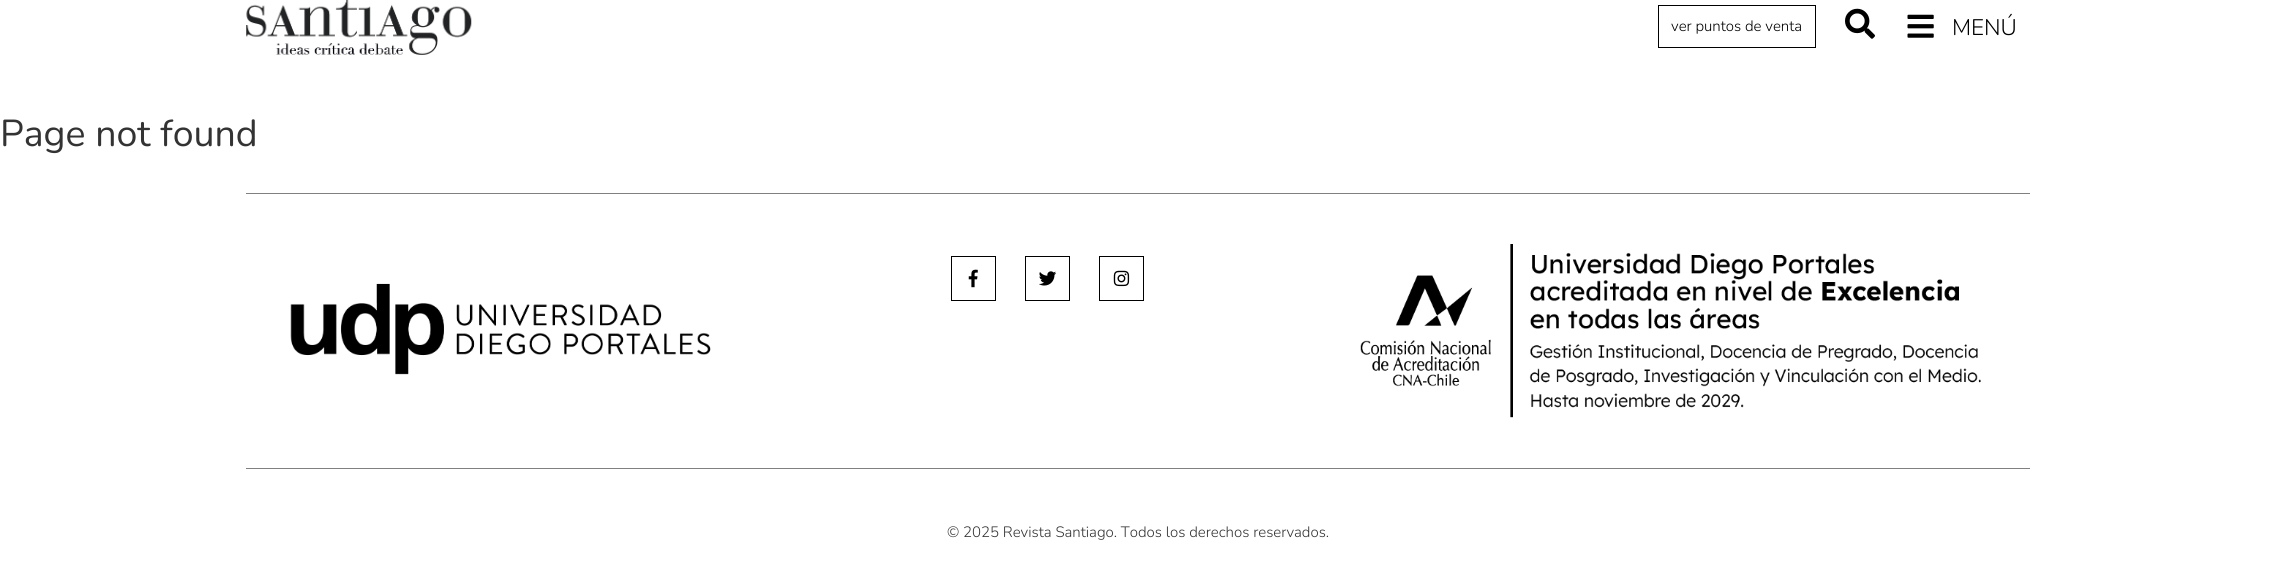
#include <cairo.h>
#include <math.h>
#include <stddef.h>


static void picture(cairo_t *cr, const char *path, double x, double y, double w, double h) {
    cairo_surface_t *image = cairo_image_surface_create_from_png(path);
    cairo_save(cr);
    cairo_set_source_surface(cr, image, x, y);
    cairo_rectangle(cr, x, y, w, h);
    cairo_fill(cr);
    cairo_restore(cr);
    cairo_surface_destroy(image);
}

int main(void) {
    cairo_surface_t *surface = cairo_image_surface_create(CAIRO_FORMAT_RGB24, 2276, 571);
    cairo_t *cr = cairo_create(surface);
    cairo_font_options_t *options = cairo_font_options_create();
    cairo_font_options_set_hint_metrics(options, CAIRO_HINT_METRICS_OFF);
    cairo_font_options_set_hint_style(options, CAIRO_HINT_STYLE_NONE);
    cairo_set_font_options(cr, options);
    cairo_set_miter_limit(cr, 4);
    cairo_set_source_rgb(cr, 1, 1, 1);
    cairo_paint(cr);
    picture(cr, "img1.png", 246, 0, 226, 55);
    cairo_rectangle(cr, 1658.5, 5.5, 157, 42);
    cairo_set_source_rgb(cr, 0, 0, 0);
    cairo_set_line_width(cr, 1);
    cairo_stroke(cr);
    cairo_select_font_face(cr, "Nunito Light", CAIRO_FONT_SLANT_NORMAL, CAIRO_FONT_WEIGHT_NORMAL);
    cairo_set_font_size(cr, 15);
    cairo_move_to(cr, 1671, 31);
    cairo_show_text(cr, "ver puntos de venta");
    picture(cr, "img2.png", 1845, 8, 30, 31);
    picture(cr, "img3.png", 1907, 14, 27, 24);
    cairo_set_font_size(cr, 22.5);
    cairo_move_to(cr, 1952, 35);
    cairo_show_text(cr, "MENÚ");
    cairo_select_font_face(cr, "Nunito", CAIRO_FONT_SLANT_NORMAL, CAIRO_FONT_WEIGHT_NORMAL);
    cairo_set_font_size(cr, 37.5);
    cairo_set_source_rgb(cr, 0.2, 0.2, 0.2);
    cairo_move_to(cr, 0, 146);
    cairo_show_text(cr, "Page not found");
    cairo_set_source_rgb(cr, 0.502, 0.502, 0.502);
    cairo_rectangle(cr, 246, 193, 1784, 1);
    cairo_fill(cr);
    cairo_rectangle(cr, 951.5, 256.5, 44, 44);
    cairo_set_source_rgb(cr, 0, 0, 0);
    cairo_stroke(cr);
    picture(cr, "img4.png", 968, 269, 10, 19);
    cairo_rectangle(cr, 1025.5, 256.5, 44, 44);
    cairo_stroke(cr);
    picture(cr, "img5.png", 1039, 271, 18, 15);
    cairo_rectangle(cr, 1099.5, 256.5, 44, 44);
    cairo_stroke(cr);
    picture(cr, "img6.png", 1113, 270, 17, 17);
    picture(cr, "img7.png", 1360, 244, 621, 174);
    picture(cr, "img8.png", 290, 283, 421, 92);
    cairo_set_source_rgb(cr, 0.502, 0.502, 0.502);
    cairo_rectangle(cr, 246, 468, 1784, 1);
    cairo_fill(cr);
    cairo_select_font_face(cr, "Nunito Light", CAIRO_FONT_SLANT_NORMAL, CAIRO_FONT_WEIGHT_NORMAL);
    cairo_set_font_size(cr, 15);
    cairo_set_source_rgb(cr, 0.2, 0.2, 0.2);
    cairo_move_to(cr, 947, 537);
    cairo_show_text(cr, "© 2025 Revista Santiago. Todos los derechos reservados.");
    cairo_surface_write_to_png(surface, "page.png");
    cairo_font_options_destroy(options);
    cairo_destroy(cr);
    cairo_surface_destroy(surface);
    return 0;
}
